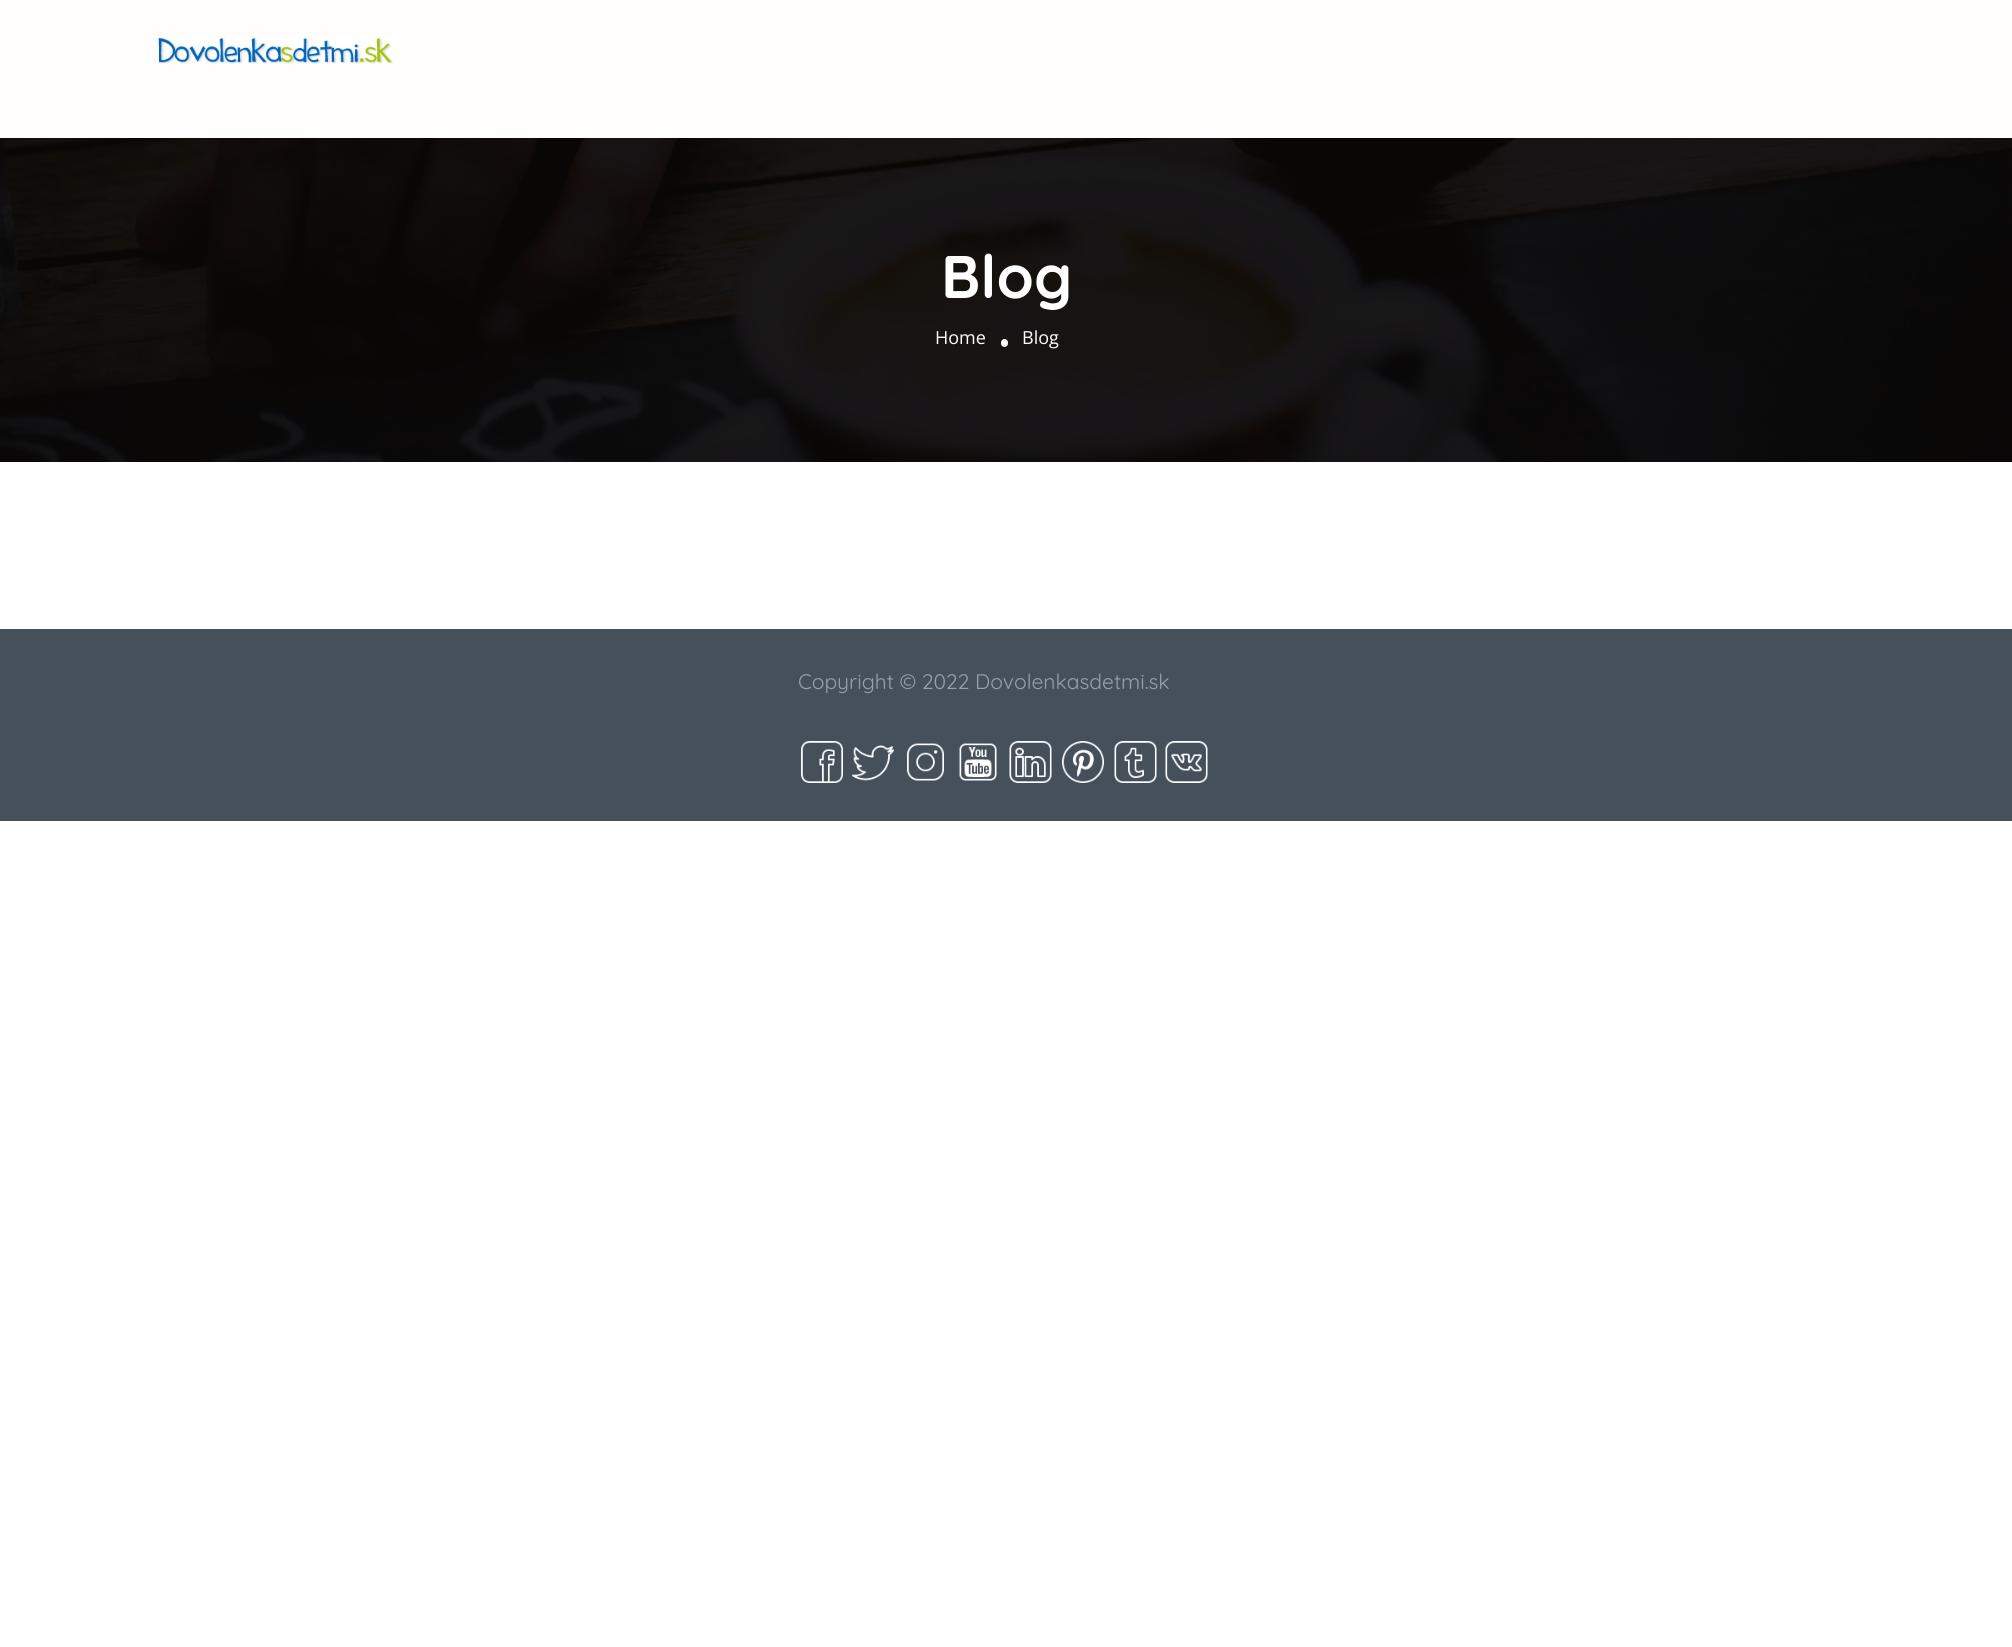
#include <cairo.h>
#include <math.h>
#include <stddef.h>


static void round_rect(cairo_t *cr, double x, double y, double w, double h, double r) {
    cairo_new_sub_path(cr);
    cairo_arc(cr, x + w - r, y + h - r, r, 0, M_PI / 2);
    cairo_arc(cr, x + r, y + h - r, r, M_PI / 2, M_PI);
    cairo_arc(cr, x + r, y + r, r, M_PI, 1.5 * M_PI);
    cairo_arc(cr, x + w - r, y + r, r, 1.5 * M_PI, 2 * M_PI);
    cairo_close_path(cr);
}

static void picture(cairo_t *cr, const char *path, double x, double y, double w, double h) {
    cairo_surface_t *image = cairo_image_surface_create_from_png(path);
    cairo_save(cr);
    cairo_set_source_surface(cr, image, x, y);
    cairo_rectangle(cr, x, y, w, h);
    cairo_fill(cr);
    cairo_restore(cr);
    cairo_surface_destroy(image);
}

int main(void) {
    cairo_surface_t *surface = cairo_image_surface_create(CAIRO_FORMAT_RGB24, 2012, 1647);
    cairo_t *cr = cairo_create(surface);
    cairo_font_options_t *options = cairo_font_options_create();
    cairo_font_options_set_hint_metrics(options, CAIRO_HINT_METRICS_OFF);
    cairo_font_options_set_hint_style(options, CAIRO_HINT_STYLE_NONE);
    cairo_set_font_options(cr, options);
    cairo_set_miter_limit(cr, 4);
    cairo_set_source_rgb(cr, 1, 1, 1);
    cairo_paint(cr);
    cairo_set_source_rgb(cr, 1, 0.996, 0.988);
    cairo_rectangle(cr, 0, 0, 2012, 138);
    cairo_fill(cr);
    picture(cr, "img1.png", 158, 37, 235, 27);
    cairo_set_source_rgb(cr, 1, 1, 1);
    cairo_set_fill_rule(cr, CAIRO_FILL_RULE_EVEN_ODD);
    cairo_new_path(cr);
    cairo_move_to(cr, 1668, 60);
    cairo_line_to(cr, 1708, 60);
    cairo_line_to(cr, 1708, 110);
    cairo_line_to(cr, 1668, 110);
    cairo_curve_to(cr, 1664, 110, 1660, 106, 1660, 102);
    cairo_line_to(cr, 1660, 68);
    cairo_curve_to(cr, 1660, 63, 1664, 60, 1668, 60);
    cairo_close_path(cr);
    cairo_move_to(cr, 1668, 62);
    cairo_line_to(cr, 1708, 62);
    cairo_line_to(cr, 1708, 108);
    cairo_line_to(cr, 1668, 108);
    cairo_curve_to(cr, 1665, 108, 1662, 105, 1662, 102);
    cairo_line_to(cr, 1662, 68);
    cairo_curve_to(cr, 1662, 64, 1665, 62, 1668, 62);
    cairo_close_path(cr);
    cairo_fill(cr);
    cairo_new_path(cr);
    cairo_move_to(cr, 1708, 58);
    cairo_line_to(cr, 1854, 58);
    cairo_curve_to(cr, 1858, 58, 1862, 62, 1862, 66);
    cairo_line_to(cr, 1862, 104);
    cairo_curve_to(cr, 1862, 108, 1858, 111, 1854, 111);
    cairo_line_to(cr, 1708, 111);
    cairo_close_path(cr);
    cairo_move_to(cr, 1708, 60);
    cairo_line_to(cr, 1854, 60);
    cairo_curve_to(cr, 1857, 60, 1860, 63, 1860, 66);
    cairo_line_to(cr, 1860, 104);
    cairo_curve_to(cr, 1860, 107, 1857, 110, 1854, 110);
    cairo_line_to(cr, 1708, 110);
    cairo_close_path(cr);
    cairo_fill(cr);
    picture(cr, "img2.png", 0, 138, 2012, 324);
    cairo_select_font_face(cr, "Quicksand", CAIRO_FONT_SLANT_NORMAL, CAIRO_FONT_WEIGHT_BOLD);
    cairo_set_font_size(cr, 60);
    cairo_move_to(cr, 941, 298);
    cairo_show_text(cr, "Blog");
    cairo_select_font_face(cr, "Open Sans", CAIRO_FONT_SLANT_NORMAL, CAIRO_FONT_WEIGHT_NORMAL);
    cairo_set_font_size(cr, 18);
    cairo_move_to(cr, 935, 344);
    cairo_show_text(cr, "Home");
    round_rect(cr, 1001, 339, 7, 8, 3.5);
    cairo_fill(cr);
    cairo_move_to(cr, 1022, 344);
    cairo_show_text(cr, "Blog");
    cairo_set_source_rgb(cr, 0.271, 0.314, 0.357);
    cairo_rectangle(cr, 0, 629, 2012, 192);
    cairo_fill(cr);
    cairo_select_font_face(cr, "Quicksand", CAIRO_FONT_SLANT_NORMAL, CAIRO_FONT_WEIGHT_NORMAL);
    cairo_set_font_size(cr, 21);
    cairo_set_source_rgb(cr, 0.588, 0.627, 0.663);
    cairo_move_to(cr, 798, 689);
    cairo_show_text(cr, "Copyright © 2022 Dovolenkasdetmi.sk");
    picture(cr, "img3.png", 801, 741, 42, 42);
    picture(cr, "img4.png", 852, 745, 42, 36);
    picture(cr, "img5.png", 907, 743, 37, 38);
    picture(cr, "img6.png", 959, 743, 38, 38);
    picture(cr, "img7.png", 1009, 741, 43, 42);
    picture(cr, "img8.png", 1062, 741, 42, 42);
    picture(cr, "img9.png", 1114, 741, 43, 42);
    picture(cr, "img10.png", 1165, 741, 43, 42);
    cairo_surface_write_to_png(surface, "page.png");
    cairo_font_options_destroy(options);
    cairo_destroy(cr);
    cairo_surface_destroy(surface);
    return 0;
}
